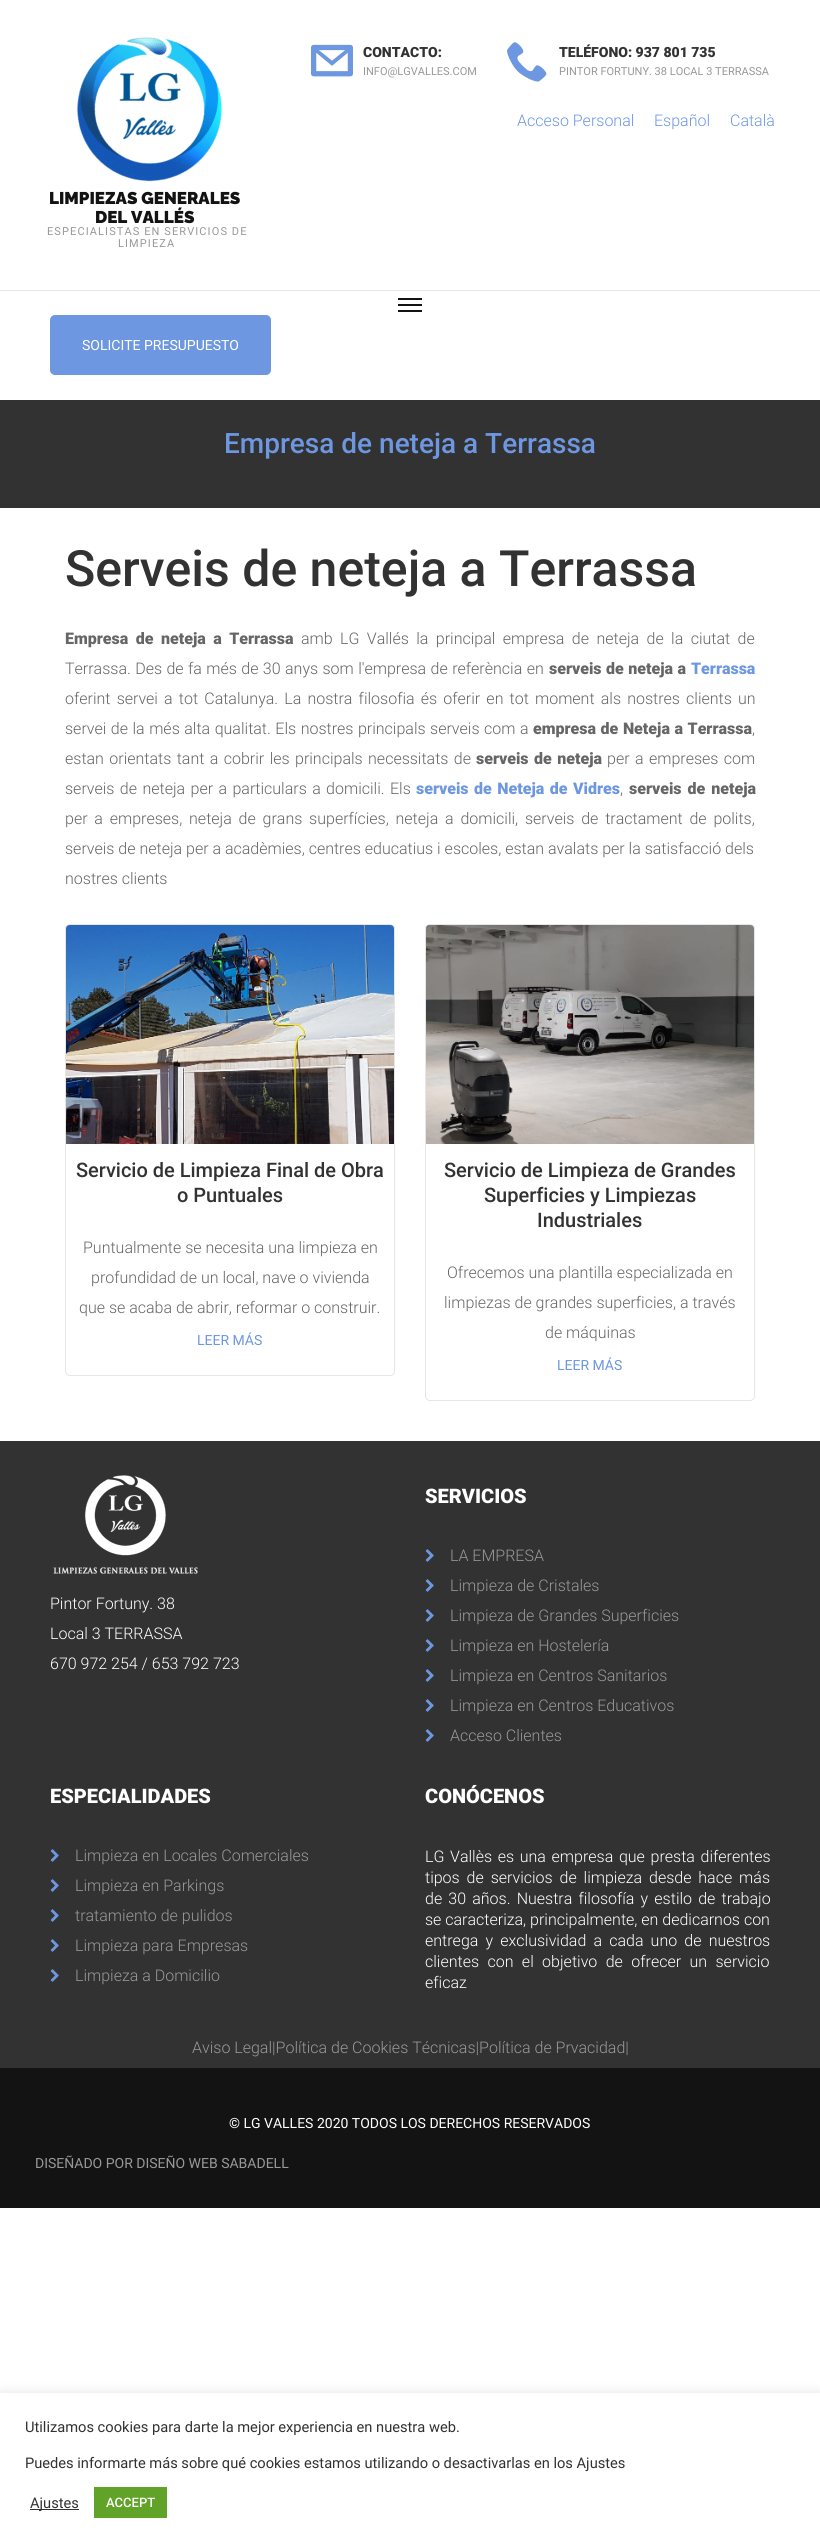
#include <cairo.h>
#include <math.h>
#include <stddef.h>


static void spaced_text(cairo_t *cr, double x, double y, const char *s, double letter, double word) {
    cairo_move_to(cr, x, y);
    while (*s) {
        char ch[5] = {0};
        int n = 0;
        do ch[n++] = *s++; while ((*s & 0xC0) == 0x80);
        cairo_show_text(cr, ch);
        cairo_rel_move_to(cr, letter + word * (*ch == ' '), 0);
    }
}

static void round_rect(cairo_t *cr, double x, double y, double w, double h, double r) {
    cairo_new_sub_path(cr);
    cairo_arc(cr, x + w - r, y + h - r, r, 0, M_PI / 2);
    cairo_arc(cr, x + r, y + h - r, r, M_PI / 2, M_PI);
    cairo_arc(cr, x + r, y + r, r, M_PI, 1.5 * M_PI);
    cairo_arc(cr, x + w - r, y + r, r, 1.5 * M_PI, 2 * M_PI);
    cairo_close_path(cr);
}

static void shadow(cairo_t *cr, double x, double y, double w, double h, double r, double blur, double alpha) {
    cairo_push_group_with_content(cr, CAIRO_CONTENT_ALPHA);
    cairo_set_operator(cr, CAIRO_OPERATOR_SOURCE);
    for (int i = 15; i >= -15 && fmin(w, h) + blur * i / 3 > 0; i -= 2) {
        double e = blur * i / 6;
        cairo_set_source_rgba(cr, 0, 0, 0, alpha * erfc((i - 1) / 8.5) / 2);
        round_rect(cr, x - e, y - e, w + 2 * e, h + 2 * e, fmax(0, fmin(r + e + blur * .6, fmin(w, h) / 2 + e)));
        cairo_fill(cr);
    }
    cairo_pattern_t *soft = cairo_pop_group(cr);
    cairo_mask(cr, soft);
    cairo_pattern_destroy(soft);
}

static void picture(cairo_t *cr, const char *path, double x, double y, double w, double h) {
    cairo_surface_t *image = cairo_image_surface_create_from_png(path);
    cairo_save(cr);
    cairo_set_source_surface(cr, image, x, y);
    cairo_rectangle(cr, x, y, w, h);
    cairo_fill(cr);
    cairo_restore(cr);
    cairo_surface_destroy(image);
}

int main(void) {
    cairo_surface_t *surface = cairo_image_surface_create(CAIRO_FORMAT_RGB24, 820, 2548);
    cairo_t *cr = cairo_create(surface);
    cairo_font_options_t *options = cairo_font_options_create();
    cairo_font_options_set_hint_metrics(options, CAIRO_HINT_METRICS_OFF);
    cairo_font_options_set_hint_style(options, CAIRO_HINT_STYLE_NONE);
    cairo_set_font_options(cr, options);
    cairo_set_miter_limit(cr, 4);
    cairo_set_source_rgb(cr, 1, 1, 1);
    cairo_paint(cr);
    picture(cr, "img1.png", 311, 44, 42, 33);
    cairo_select_font_face(cr, "Roboto Black", CAIRO_FONT_SLANT_NORMAL, CAIRO_FONT_WEIGHT_NORMAL);
    cairo_set_font_size(cr, 14);
    cairo_set_source_rgb(cr, 0.196, 0.196, 0.196);
    cairo_move_to(cr, 363, 57);
    cairo_show_text(cr, "CONTACTO:");
    cairo_select_font_face(cr, "Roboto", CAIRO_FONT_SLANT_NORMAL, CAIRO_FONT_WEIGHT_NORMAL);
    cairo_set_font_size(cr, 11);
    cairo_set_source_rgb(cr, 0.596, 0.596, 0.596);
    cairo_move_to(cr, 363, 75);
    cairo_show_text(cr, "INFO@LGVALLES.COM");
    picture(cr, "img2.png", 507, 42, 40, 40);
    cairo_select_font_face(cr, "Roboto Black", CAIRO_FONT_SLANT_NORMAL, CAIRO_FONT_WEIGHT_NORMAL);
    cairo_set_font_size(cr, 14);
    cairo_set_source_rgb(cr, 0.196, 0.196, 0.196);
    cairo_move_to(cr, 559, 57);
    cairo_show_text(cr, "TELÉFONO: 937 801 735");
    cairo_select_font_face(cr, "Roboto", CAIRO_FONT_SLANT_NORMAL, CAIRO_FONT_WEIGHT_NORMAL);
    cairo_set_font_size(cr, 11);
    cairo_set_source_rgb(cr, 0.596, 0.596, 0.596);
    cairo_move_to(cr, 559, 75);
    cairo_show_text(cr, "PINTOR FORTUNY. 38 LOCAL 3 TERRASSA");
    cairo_select_font_face(cr, "Roboto Light", CAIRO_FONT_SLANT_NORMAL, CAIRO_FONT_WEIGHT_NORMAL);
    cairo_set_font_size(cr, 16);
    cairo_set_source_rgb(cr, 0.427, 0.592, 0.878);
    cairo_move_to(cr, 517, 126);
    cairo_show_text(cr, "Acceso Personal");
    cairo_move_to(cr, 654, 126);
    cairo_show_text(cr, "Español");
    cairo_move_to(cr, 730, 126);
    cairo_show_text(cr, "Català");
    picture(cr, "img3.png", 77, 37, 145, 145);
    cairo_select_font_face(cr, "Raleway Black", CAIRO_FONT_SLANT_NORMAL, CAIRO_FONT_WEIGHT_NORMAL);
    cairo_set_font_size(cr, 17);
    cairo_set_source_rgb(cr, 0.078, 0.078, 0.078);
    cairo_move_to(cr, 49, 204);
    cairo_show_text(cr, "LIMPIEZAS GENERALES");
    cairo_move_to(cr, 95, 223);
    cairo_show_text(cr, "DEL VALLÉS");
    cairo_select_font_face(cr, "Roboto", CAIRO_FONT_SLANT_NORMAL, CAIRO_FONT_WEIGHT_NORMAL);
    cairo_set_font_size(cr, 11);
    cairo_set_source_rgb(cr, 0.596, 0.596, 0.596);
    spaced_text(cr, 47, 235, "ESPECIALISTAS EN SERVICIOS DE", 1.1, 0);
    spaced_text(cr, 118, 247, "LIMPIEZA", 1.1, 0);
    cairo_set_source_rgb(cr, 0.898, 0.898, 0.898);
    cairo_rectangle(cr, 0, 290, 820, 1);
    cairo_fill(cr);
    cairo_set_source_rgb(cr, 0.078, 0.078, 0.078);
    cairo_rectangle(cr, 398, 304, 24, 2);
    cairo_fill(cr);
    cairo_rectangle(cr, 398, 298, 24, 2);
    cairo_fill(cr);
    cairo_rectangle(cr, 398, 310, 24, 2);
    cairo_fill(cr);
    cairo_set_source_rgb(cr, 0.427, 0.592, 0.878);
    round_rect(cr, 51, 316, 219, 58, 4);
    cairo_fill_preserve(cr);
    cairo_stroke(cr);
    cairo_set_font_size(cr, 14);
    cairo_set_source_rgb(cr, 1, 1, 1);
    cairo_move_to(cr, 82, 350);
    cairo_show_text(cr, "SOLICITE PRESUPUESTO");
    cairo_set_source_rgb(cr, 0.196, 0.196, 0.196);
    cairo_rectangle(cr, 0, 400, 820, 108);
    cairo_fill(cr);
    cairo_select_font_face(cr, "Roboto Medium", CAIRO_FONT_SLANT_NORMAL, CAIRO_FONT_WEIGHT_NORMAL);
    cairo_set_font_size(cr, 28);
    cairo_set_source_rgb(cr, 0.427, 0.592, 0.878);
    cairo_move_to(cr, 224, 453);
    cairo_show_text(cr, "Empresa de neteja a Terrassa");
    cairo_set_font_size(cr, 50);
    cairo_set_source_rgb(cr, 0.196, 0.196, 0.196);
    cairo_move_to(cr, 65, 586);
    cairo_show_text(cr, "Serveis de neteja a Terrassa");
    cairo_select_font_face(cr, "Roboto Black", CAIRO_FONT_SLANT_NORMAL, CAIRO_FONT_WEIGHT_NORMAL);
    cairo_set_font_size(cr, 16);
    cairo_set_source_rgb(cr, 0.4, 0.4, 0.4);
    spaced_text(cr, 65, 644, "Empresa de neteja a Terrassa", 0, 3.5);
    cairo_select_font_face(cr, "Roboto Light", CAIRO_FONT_SLANT_NORMAL, CAIRO_FONT_WEIGHT_NORMAL);
    spaced_text(cr, 301, 644, "amb LG Vallés la principal empresa de neteja de la ciutat de", 0, 3.5);
    spaced_text(cr, 65, 674, "Terrassa. Des de fa més de 30 anys som l'empresa de referència en", 0, 0.5);
    cairo_select_font_face(cr, "Roboto Black", CAIRO_FONT_SLANT_NORMAL, CAIRO_FONT_WEIGHT_NORMAL);
    spaced_text(cr, 549, 674, "serveis de neteja a", 0, 0.5);
    cairo_set_source_rgb(cr, 0.427, 0.592, 0.878);
    cairo_move_to(cr, 691, 674);
    cairo_show_text(cr, "Terrassa");
    cairo_select_font_face(cr, "Roboto Light", CAIRO_FONT_SLANT_NORMAL, CAIRO_FONT_WEIGHT_NORMAL);
    cairo_set_source_rgb(cr, 0.4, 0.4, 0.4);
    spaced_text(cr, 65, 704, "oferint servei a tot Catalunya. La nostra filosofia és oferir en tot moment als nostres clients un", 0, 2.25);
    spaced_text(cr, 65, 734, "servei de la més alta qualitat. Els nostres principals serveis com a", 0, 0.6);
    cairo_select_font_face(cr, "Roboto Black", CAIRO_FONT_SLANT_NORMAL, CAIRO_FONT_WEIGHT_NORMAL);
    spaced_text(cr, 533, 734, "empresa de Neteja a Terrassa", 0, 0.6);
    cairo_select_font_face(cr, "Roboto Light", CAIRO_FONT_SLANT_NORMAL, CAIRO_FONT_WEIGHT_NORMAL);
    cairo_move_to(cr, 752, 734);
    cairo_show_text(cr, ",");
    spaced_text(cr, 65, 764, "estan orientats tant a cobrir les principals necessitats de", 0, 1.5);
    cairo_select_font_face(cr, "Roboto Black", CAIRO_FONT_SLANT_NORMAL, CAIRO_FONT_WEIGHT_NORMAL);
    spaced_text(cr, 476, 764, "serveis de neteja", 0, 1.5);
    cairo_select_font_face(cr, "Roboto Light", CAIRO_FONT_SLANT_NORMAL, CAIRO_FONT_WEIGHT_NORMAL);
    spaced_text(cr, 607, 764, "per a empreses com", 0, 1.5);
    spaced_text(cr, 65, 794, "serveis de neteja per a particulars a domicili. Els", 0, 1.5);
    cairo_select_font_face(cr, "Roboto Black", CAIRO_FONT_SLANT_NORMAL, CAIRO_FONT_WEIGHT_NORMAL);
    cairo_set_source_rgb(cr, 0.427, 0.592, 0.878);
    spaced_text(cr, 416, 794, "serveis de Neteja de Vidres", 0, 1.5);
    cairo_select_font_face(cr, "Roboto Light", CAIRO_FONT_SLANT_NORMAL, CAIRO_FONT_WEIGHT_NORMAL);
    cairo_set_source_rgb(cr, 0.4, 0.4, 0.4);
    cairo_move_to(cr, 620, 794);
    cairo_show_text(cr, ",");
    cairo_select_font_face(cr, "Roboto Black", CAIRO_FONT_SLANT_NORMAL, CAIRO_FONT_WEIGHT_NORMAL);
    spaced_text(cr, 629, 794, "serveis de neteja", 0, 2);
    cairo_select_font_face(cr, "Roboto Light", CAIRO_FONT_SLANT_NORMAL, CAIRO_FONT_WEIGHT_NORMAL);
    spaced_text(cr, 65, 824, "per a empreses, neteja de grans superfícies, neteja a domicili, serveis de tractament de polits,", 0, 2.9);
    cairo_move_to(cr, 65, 854);
    cairo_show_text(cr, "serveis de neteja per a acadèmies, centres educatius i escoles, estan avalats per la satisfacció dels");
    cairo_move_to(cr, 65, 884);
    cairo_show_text(cr, "nostres clients");
    round_rect(cr, 65.5, 924.5, 329, 451, 4.5);
    cairo_set_source_rgb(cr, 0.902, 0.902, 0.902);
    cairo_set_line_width(cr, 1);
    cairo_stroke(cr);
    picture(cr, "img4.png", 66, 925, 328, 219);
    cairo_select_font_face(cr, "Roboto Medium", CAIRO_FONT_SLANT_NORMAL, CAIRO_FONT_WEIGHT_NORMAL);
    cairo_set_font_size(cr, 20);
    cairo_set_source_rgb(cr, 0.196, 0.196, 0.196);
    cairo_move_to(cr, 76, 1177);
    cairo_show_text(cr, "Servicio de Limpieza Final de Obra");
    cairo_move_to(cr, 177, 1202);
    cairo_show_text(cr, "o Puntuales");
    cairo_select_font_face(cr, "Roboto Light", CAIRO_FONT_SLANT_NORMAL, CAIRO_FONT_WEIGHT_NORMAL);
    cairo_set_font_size(cr, 16);
    cairo_set_source_rgb(cr, 0.4, 0.4, 0.4);
    cairo_move_to(cr, 83, 1253);
    cairo_show_text(cr, "Puntualmente se necesita una limpieza en");
    cairo_move_to(cr, 91, 1283);
    cairo_show_text(cr, "profundidad de un local, nave o vivienda");
    cairo_move_to(cr, 79, 1313);
    cairo_show_text(cr, "que se acaba de abrir, reformar o construir.");
    cairo_select_font_face(cr, "Roboto", CAIRO_FONT_SLANT_NORMAL, CAIRO_FONT_WEIGHT_NORMAL);
    cairo_set_font_size(cr, 14);
    cairo_set_source_rgb(cr, 0.427, 0.592, 0.878);
    cairo_move_to(cr, 197, 1345);
    cairo_show_text(cr, "LEER MÁS");
    round_rect(cr, 425.5, 924.5, 329, 476, 4.5);
    cairo_set_source_rgb(cr, 0.902, 0.902, 0.902);
    cairo_stroke(cr);
    picture(cr, "img5.png", 426, 925, 328, 219);
    cairo_select_font_face(cr, "Roboto Medium", CAIRO_FONT_SLANT_NORMAL, CAIRO_FONT_WEIGHT_NORMAL);
    cairo_set_font_size(cr, 20);
    cairo_set_source_rgb(cr, 0.196, 0.196, 0.196);
    cairo_move_to(cr, 444, 1177);
    cairo_show_text(cr, "Servicio de Limpieza de Grandes");
    cairo_move_to(cr, 484, 1202);
    cairo_show_text(cr, "Superficies y Limpiezas");
    cairo_move_to(cr, 537, 1227);
    cairo_show_text(cr, "Industriales");
    cairo_select_font_face(cr, "Roboto Light", CAIRO_FONT_SLANT_NORMAL, CAIRO_FONT_WEIGHT_NORMAL);
    cairo_set_font_size(cr, 16);
    cairo_set_source_rgb(cr, 0.4, 0.4, 0.4);
    cairo_move_to(cr, 447, 1278);
    cairo_show_text(cr, "Ofrecemos una plantilla especializada en");
    cairo_move_to(cr, 444, 1308);
    cairo_show_text(cr, "limpiezas de grandes superficies, a través");
    cairo_move_to(cr, 545, 1338);
    cairo_show_text(cr, "de máquinas");
    cairo_select_font_face(cr, "Roboto", CAIRO_FONT_SLANT_NORMAL, CAIRO_FONT_WEIGHT_NORMAL);
    cairo_set_font_size(cr, 14);
    cairo_set_source_rgb(cr, 0.427, 0.592, 0.878);
    cairo_move_to(cr, 557, 1370);
    cairo_show_text(cr, "LEER MÁS");
    cairo_set_source_rgb(cr, 0.196, 0.196, 0.196);
    cairo_rectangle(cr, 0, 1441, 820, 627);
    cairo_fill(cr);
    picture(cr, "img6.png", 53, 1475, 145, 99);
    cairo_select_font_face(cr, "Roboto Light", CAIRO_FONT_SLANT_NORMAL, CAIRO_FONT_WEIGHT_NORMAL);
    cairo_set_font_size(cr, 16);
    cairo_set_source_rgb(cr, 1, 1, 1);
    cairo_move_to(cr, 50, 1609);
    cairo_show_text(cr, "Pintor Fortuny. 38");
    cairo_move_to(cr, 50, 1639);
    cairo_show_text(cr, "Local 3 TERRASSA");
    cairo_move_to(cr, 50, 1669);
    cairo_show_text(cr, "670 972 254 / 653 792 723");
    cairo_select_font_face(cr, "Roboto Black", CAIRO_FONT_SLANT_NORMAL, CAIRO_FONT_WEIGHT_NORMAL);
    cairo_set_font_size(cr, 20);
    cairo_move_to(cr, 425, 1503);
    cairo_show_text(cr, "SERVICIOS");
    picture(cr, "img7.png", 425, 1549, 9, 13);
    cairo_select_font_face(cr, "Roboto Light", CAIRO_FONT_SLANT_NORMAL, CAIRO_FONT_WEIGHT_NORMAL);
    cairo_set_font_size(cr, 16);
    cairo_set_source_rgb(cr, 0.596, 0.596, 0.596);
    cairo_move_to(cr, 450, 1561);
    cairo_show_text(cr, "LA EMPRESA");
    picture(cr, "img7.png", 425, 1579, 9, 13);
    cairo_move_to(cr, 450, 1591);
    cairo_show_text(cr, "Limpieza de Cristales");
    picture(cr, "img7.png", 425, 1609, 9, 13);
    cairo_move_to(cr, 450, 1621);
    cairo_show_text(cr, "Limpieza de Grandes Superficies");
    picture(cr, "img7.png", 425, 1639, 9, 13);
    cairo_move_to(cr, 450, 1651);
    cairo_show_text(cr, "Limpieza en Hostelería");
    picture(cr, "img7.png", 425, 1669, 9, 13);
    cairo_move_to(cr, 450, 1681);
    cairo_show_text(cr, "Limpieza en Centros Sanitarios");
    picture(cr, "img7.png", 425, 1699, 9, 13);
    cairo_move_to(cr, 450, 1711);
    cairo_show_text(cr, "Limpieza en Centros Educativos");
    picture(cr, "img7.png", 425, 1729, 9, 13);
    cairo_move_to(cr, 450, 1741);
    cairo_show_text(cr, "Acceso Clientes");
    cairo_select_font_face(cr, "Roboto Black", CAIRO_FONT_SLANT_NORMAL, CAIRO_FONT_WEIGHT_NORMAL);
    cairo_set_font_size(cr, 20);
    cairo_set_source_rgb(cr, 1, 1, 1);
    cairo_move_to(cr, 50, 1803);
    cairo_show_text(cr, "ESPECIALIDADES");
    picture(cr, "img7.png", 50, 1849, 9, 13);
    cairo_select_font_face(cr, "Roboto Light", CAIRO_FONT_SLANT_NORMAL, CAIRO_FONT_WEIGHT_NORMAL);
    cairo_set_font_size(cr, 16);
    cairo_set_source_rgb(cr, 0.596, 0.596, 0.596);
    cairo_move_to(cr, 75, 1861);
    cairo_show_text(cr, "Limpieza en Locales Comerciales");
    picture(cr, "img7.png", 50, 1879, 9, 13);
    cairo_move_to(cr, 75, 1891);
    cairo_show_text(cr, "Limpieza en Parkings");
    picture(cr, "img7.png", 50, 1909, 9, 13);
    cairo_move_to(cr, 75, 1921);
    cairo_show_text(cr, "tratamiento de pulidos");
    picture(cr, "img7.png", 50, 1939, 9, 13);
    cairo_move_to(cr, 75, 1951);
    cairo_show_text(cr, "Limpieza para Empresas");
    picture(cr, "img7.png", 50, 1969, 9, 13);
    cairo_move_to(cr, 75, 1981);
    cairo_show_text(cr, "Limpieza a Domicilio");
    cairo_select_font_face(cr, "Roboto Black", CAIRO_FONT_SLANT_NORMAL, CAIRO_FONT_WEIGHT_NORMAL);
    cairo_set_font_size(cr, 20);
    cairo_set_source_rgb(cr, 1, 1, 1);
    cairo_move_to(cr, 425, 1803);
    cairo_show_text(cr, "CONÓCENOS");
    cairo_select_font_face(cr, "Roboto Light", CAIRO_FONT_SLANT_NORMAL, CAIRO_FONT_WEIGHT_NORMAL);
    cairo_set_font_size(cr, 16);
    spaced_text(cr, 425, 1862, "LG Vallès es una empresa que presta diferentes", 0, 1.75);
    spaced_text(cr, 425, 1883, "tipos de servicios de limpieza desde hace más", 0, 3);
    spaced_text(cr, 425, 1904, "de 30 años. Nuestra filosofía y estilo de trabajo", 0, 2.25);
    cairo_move_to(cr, 425, 1925);
    cairo_show_text(cr, "se caracteriza, principalmente, en dedicarnos con");
    spaced_text(cr, 425, 1946, "entrega y exclusividad a cada uno de nuestros", 0, 3.25);
    spaced_text(cr, 425, 1967, "clientes con el objetivo de ofrecer un servicio", 0, 4.5);
    cairo_move_to(cr, 425, 1988);
    cairo_show_text(cr, "eficaz");
    cairo_set_source_rgb(cr, 0.596, 0.596, 0.596);
    cairo_move_to(cr, 192, 2053);
    cairo_show_text(cr, "Aviso Legal|Política de Cookies Técnicas|Política de Prvacidad|");
    cairo_set_source_rgb(cr, 0.078, 0.078, 0.078);
    cairo_rectangle(cr, 0, 2068, 820, 140);
    cairo_fill(cr);
    cairo_select_font_face(cr, "Roboto", CAIRO_FONT_SLANT_NORMAL, CAIRO_FONT_WEIGHT_NORMAL);
    cairo_set_font_size(cr, 14);
    cairo_set_source_rgb(cr, 1, 1, 1);
    cairo_move_to(cr, 229, 2128);
    cairo_show_text(cr, "© LG VALLES 2020 TODOS LOS DERECHOS RESERVADOS");
    cairo_set_source_rgb(cr, 0.596, 0.596, 0.596);
    cairo_move_to(cr, 35, 2168);
    cairo_show_text(cr, "DISEÑADO POR DISEÑO WEB SABADELL");
    cairo_set_source_rgb(cr, 0.675, 0.671, 0.671);
    shadow(cr, 0, 2392, 820, 155, 0, 5, 0.3);
    cairo_set_source_rgb(cr, 1, 1, 1);
    cairo_rectangle(cr, 0, 2393, 820, 155);
    cairo_fill(cr);
    cairo_set_font_size(cr, 14.65);
    cairo_set_source_rgb(cr, 0.196, 0.196, 0.196);
    cairo_move_to(cr, 25, 2432);
    cairo_show_text(cr, "Utilizamos cookies para darte la mejor experiencia en nuestra web.");
    cairo_move_to(cr, 25, 2468);
    cairo_show_text(cr, "Puedes informarte más sobre qué cookies estamos utilizando o desactivarlas en los Ajustes");
    cairo_set_source_rgb(cr, 0.2, 0.2, 0.2);
    cairo_rectangle(cr, 30, 2509, 49, 1);
    cairo_fill(cr);
    cairo_set_source_rgb(cr, 0.196, 0.196, 0.196);
    cairo_move_to(cr, 30, 2508);
    cairo_show_text(cr, "Ajustes");
    cairo_set_source_rgb(cr, 0.38, 0.635, 0.161);
    cairo_rectangle(cr, 94, 2487, 73, 31);
    cairo_fill(cr);
    cairo_select_font_face(cr, "Roboto Medium", CAIRO_FONT_SLANT_NORMAL, CAIRO_FONT_WEIGHT_NORMAL);
    cairo_set_font_size(cr, 13);
    cairo_set_source_rgb(cr, 1, 1, 1);
    cairo_move_to(cr, 106, 2507);
    cairo_show_text(cr, "ACCEPT");
    cairo_surface_write_to_png(surface, "page.png");
    cairo_font_options_destroy(options);
    cairo_destroy(cr);
    cairo_surface_destroy(surface);
    return 0;
}
